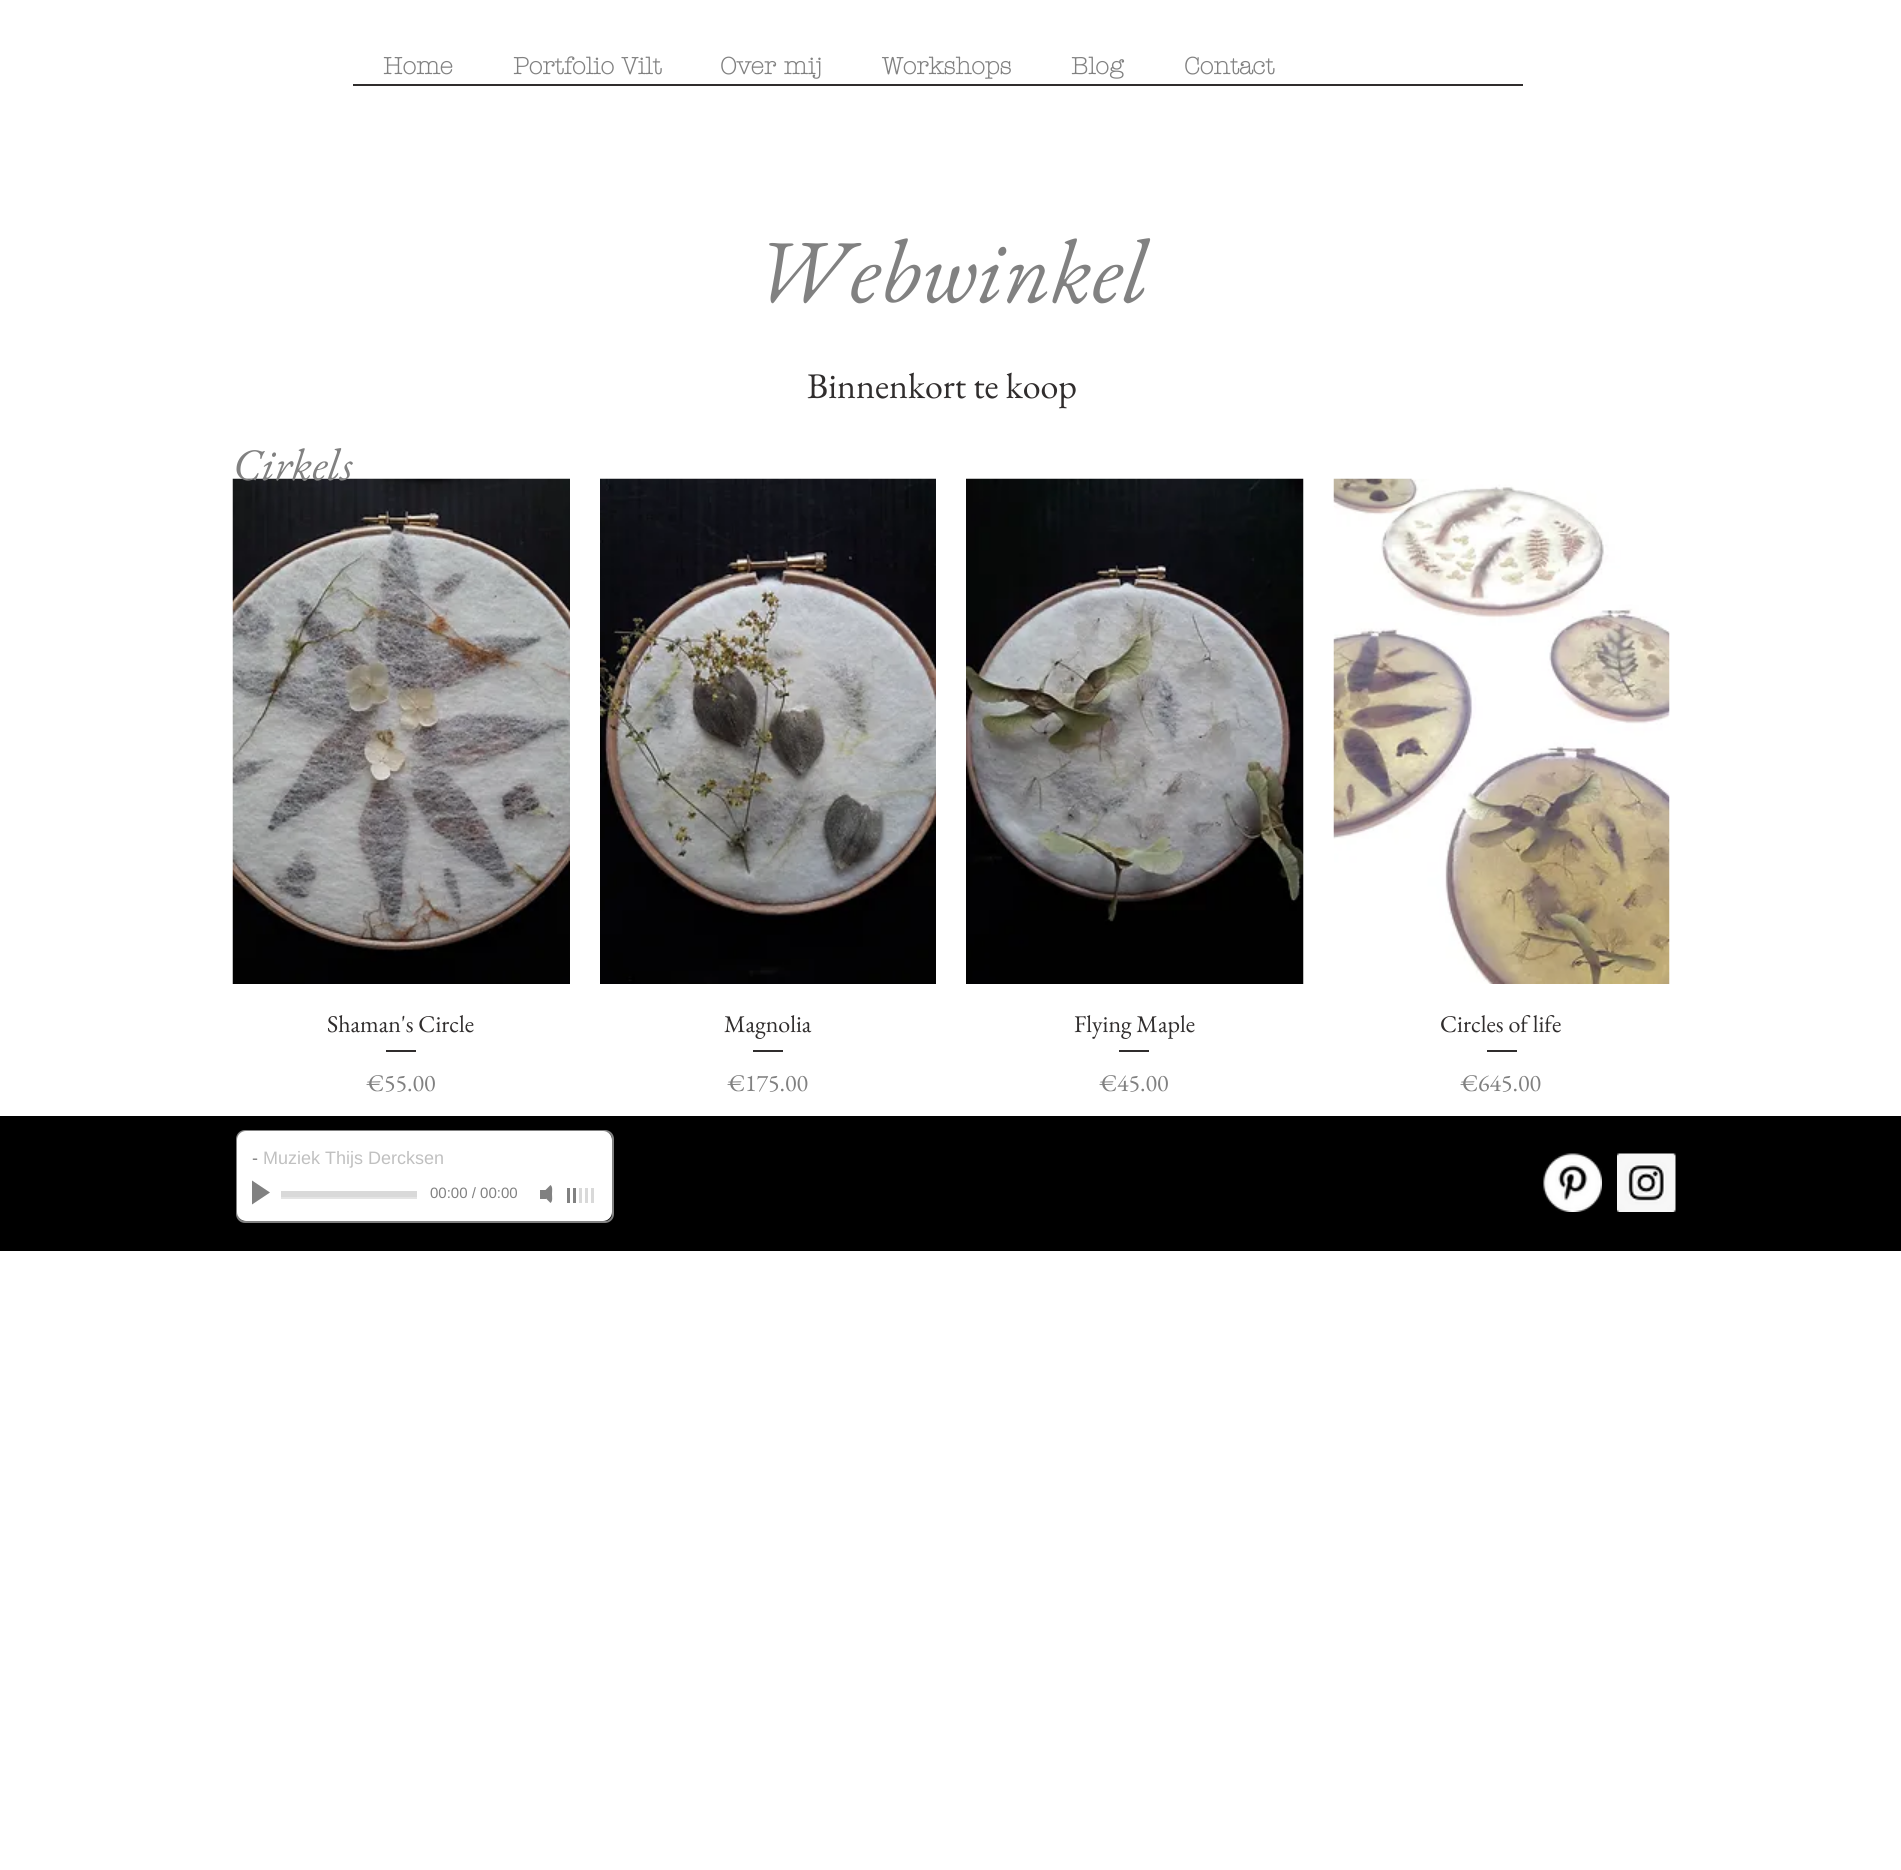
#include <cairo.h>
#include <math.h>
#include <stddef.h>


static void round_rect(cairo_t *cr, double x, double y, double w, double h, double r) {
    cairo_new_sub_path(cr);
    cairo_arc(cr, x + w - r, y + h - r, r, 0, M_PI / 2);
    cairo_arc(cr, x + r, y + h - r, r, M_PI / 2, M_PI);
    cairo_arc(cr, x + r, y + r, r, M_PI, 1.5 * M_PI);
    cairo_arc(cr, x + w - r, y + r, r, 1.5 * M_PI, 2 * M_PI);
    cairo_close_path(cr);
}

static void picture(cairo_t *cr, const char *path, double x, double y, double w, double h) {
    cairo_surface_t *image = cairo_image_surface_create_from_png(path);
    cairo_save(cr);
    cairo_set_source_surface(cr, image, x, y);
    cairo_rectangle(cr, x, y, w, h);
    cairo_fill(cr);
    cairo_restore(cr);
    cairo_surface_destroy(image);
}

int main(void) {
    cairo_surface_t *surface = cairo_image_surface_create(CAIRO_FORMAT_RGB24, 1901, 1870);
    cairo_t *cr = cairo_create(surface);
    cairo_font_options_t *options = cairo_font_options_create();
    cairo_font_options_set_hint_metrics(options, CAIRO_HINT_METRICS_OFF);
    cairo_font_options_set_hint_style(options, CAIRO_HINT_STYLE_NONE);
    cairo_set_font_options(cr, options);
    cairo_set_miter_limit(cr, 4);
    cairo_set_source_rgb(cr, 1, 1, 1);
    cairo_paint(cr);
    cairo_select_font_face(cr, "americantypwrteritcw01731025", CAIRO_FONT_SLANT_NORMAL, CAIRO_FONT_WEIGHT_BOLD);
    cairo_set_font_size(cr, 24);
    cairo_set_source_rgb(cr, 0.506, 0.506, 0.506);
    cairo_move_to(cr, 383, 74);
    cairo_show_text(cr, "Home");
    cairo_move_to(cr, 513, 74);
    cairo_show_text(cr, "Portfolio Vilt");
    cairo_move_to(cr, 720, 74);
    cairo_show_text(cr, "Over mij");
    cairo_move_to(cr, 882, 74);
    cairo_show_text(cr, "Workshops");
    cairo_move_to(cr, 1071, 74);
    cairo_show_text(cr, "Blog");
    cairo_move_to(cr, 1184, 74);
    cairo_show_text(cr, "Contact");
    cairo_set_source_rgb(cr, 0.188, 0.176, 0.176);
    cairo_rectangle(cr, 353, 84, 1170, 2);
    cairo_fill(cr);
    cairo_select_font_face(cr, "EB Garamond", CAIRO_FONT_SLANT_ITALIC, CAIRO_FONT_WEIGHT_NORMAL);
    cairo_set_font_size(cr, 90);
    cairo_set_source_rgb(cr, 0.506, 0.506, 0.506);
    cairo_move_to(cr, 754, 302);
    cairo_show_text(cr, "Webwinkel");
    cairo_select_font_face(cr, "EB Garamond", CAIRO_FONT_SLANT_NORMAL, CAIRO_FONT_WEIGHT_NORMAL);
    cairo_set_font_size(cr, 36);
    cairo_set_source_rgb(cr, 0.188, 0.176, 0.176);
    cairo_move_to(cr, 807, 398);
    cairo_show_text(cr, "Binnenkort te koop");
    picture(cr, "img1.png", 232, 478, 338, 506);
    cairo_select_font_face(cr, "EB Garamond", CAIRO_FONT_SLANT_ITALIC, CAIRO_FONT_WEIGHT_NORMAL);
    cairo_set_font_size(cr, 45);
    cairo_set_source_rgb(cr, 0.506, 0.506, 0.506);
    cairo_move_to(cr, 233, 480);
    cairo_show_text(cr, "Cirkels");
    cairo_select_font_face(cr, "EB Garamond", CAIRO_FONT_SLANT_NORMAL, CAIRO_FONT_WEIGHT_NORMAL);
    cairo_set_font_size(cr, 24);
    cairo_set_source_rgb(cr, 0.188, 0.176, 0.176);
    cairo_move_to(cr, 327, 1032);
    cairo_show_text(cr, "Shaman's Circle");
    cairo_rectangle(cr, 386, 1050, 30, 2);
    cairo_fill(cr);
    cairo_set_source_rgb(cr, 0.506, 0.506, 0.506);
    cairo_move_to(cr, 367, 1091);
    cairo_show_text(cr, "€55.00");
    picture(cr, "img2.png", 600, 478, 336, 506);
    cairo_set_source_rgb(cr, 0.188, 0.176, 0.176);
    cairo_move_to(cr, 724, 1032);
    cairo_show_text(cr, "Magnolia");
    cairo_rectangle(cr, 753, 1050, 30, 2);
    cairo_fill(cr);
    cairo_set_source_rgb(cr, 0.506, 0.506, 0.506);
    cairo_move_to(cr, 728, 1091);
    cairo_show_text(cr, "€175.00");
    picture(cr, "img3.png", 966, 478, 338, 506);
    cairo_set_source_rgb(cr, 0.188, 0.176, 0.176);
    cairo_move_to(cr, 1074, 1032);
    cairo_show_text(cr, "Flying Maple");
    cairo_rectangle(cr, 1119, 1050, 30, 2);
    cairo_fill(cr);
    cairo_set_source_rgb(cr, 0.506, 0.506, 0.506);
    cairo_move_to(cr, 1100, 1091);
    cairo_show_text(cr, "€45.00");
    picture(cr, "img4.png", 1333, 478, 337, 506);
    cairo_set_source_rgb(cr, 0.188, 0.176, 0.176);
    cairo_move_to(cr, 1440, 1032);
    cairo_show_text(cr, "Circles of life");
    cairo_rectangle(cr, 1487, 1050, 30, 2);
    cairo_fill(cr);
    cairo_set_source_rgb(cr, 0.506, 0.506, 0.506);
    cairo_move_to(cr, 1461, 1091);
    cairo_show_text(cr, "€645.00");
    cairo_set_source_rgb(cr, 0, 0, 0);
    cairo_rectangle(cr, 0, 1116, 1901, 135);
    cairo_fill(cr);
    round_rect(cr, 237, 1131, 376, 91, 8);
    cairo_set_source_rgb(cr, 0.506, 0.506, 0.506);
    cairo_stroke(cr);
    cairo_set_source_rgb(cr, 1, 1, 1);
    round_rect(cr, 237, 1131, 375, 90, 9);
    cairo_fill(cr);
    cairo_select_font_face(cr, "Liberation Sans", CAIRO_FONT_SLANT_NORMAL, CAIRO_FONT_WEIGHT_NORMAL);
    cairo_set_font_size(cr, 18);
    cairo_set_source_rgb(cr, 0.506, 0.506, 0.506);
    cairo_move_to(cr, 252, 1164);
    cairo_show_text(cr, "-");
    cairo_set_source_rgb(cr, 0.753, 0.753, 0.753);
    cairo_move_to(cr, 263, 1164);
    cairo_show_text(cr, "Muziek Thijs Dercksen");
    cairo_set_source_rgb(cr, 0.506, 0.506, 0.506);
    cairo_new_path(cr);
    cairo_move_to(cr, 252, 1204.5);
    cairo_line_to(cr, 252, 1180.5);
    cairo_line_to(cr, 270, 1192.5);
    cairo_close_path(cr);
    cairo_fill(cr);
    cairo_set_source_rgb(cr, 0.851, 0.851, 0.851);
    cairo_rectangle(cr, 281, 1191, 136, 6);
    cairo_fill(cr);
    cairo_set_source_rgb(cr, 0.894, 0.894, 0.894);
    cairo_rectangle(cr, 281, 1197, 136, 2);
    cairo_fill(cr);
    cairo_set_font_size(cr, 15);
    cairo_set_source_rgb(cr, 0.506, 0.506, 0.506);
    cairo_move_to(cr, 430, 1198);
    cairo_show_text(cr, "00:00 / 00:00");
    cairo_new_path(cr);
    cairo_move_to(cr, 550.5, 1185);
    cairo_line_to(cr, 541.5, 1194);
    cairo_line_to(cr, 550.5, 1203);
    cairo_curve_to(cr, 553, 1201, 552, 1197, 552, 1194);
    cairo_curve_to(cr, 552, 1191, 553, 1187, 550.5, 1185);
    cairo_close_path(cr);
    cairo_fill(cr);
    cairo_rectangle(cr, 540, 1190, 6, 9);
    cairo_fill(cr);
    cairo_rectangle(cr, 567, 1188, 3, 15);
    cairo_fill(cr);
    cairo_rectangle(cr, 573, 1188, 3, 15);
    cairo_fill(cr);
    cairo_set_source_rgb(cr, 0.851, 0.851, 0.851);
    cairo_rectangle(cr, 579, 1188, 3, 15);
    cairo_fill(cr);
    cairo_rectangle(cr, 585, 1188, 3, 15);
    cairo_fill(cr);
    cairo_rectangle(cr, 591, 1188, 3, 15);
    cairo_fill(cr);
    picture(cr, "img5.png", 1543, 1153, 59, 59);
    picture(cr, "img6.png", 1617, 1153, 59, 59);
    cairo_surface_write_to_png(surface, "page.png");
    cairo_font_options_destroy(options);
    cairo_destroy(cr);
    cairo_surface_destroy(surface);
    return 0;
}
